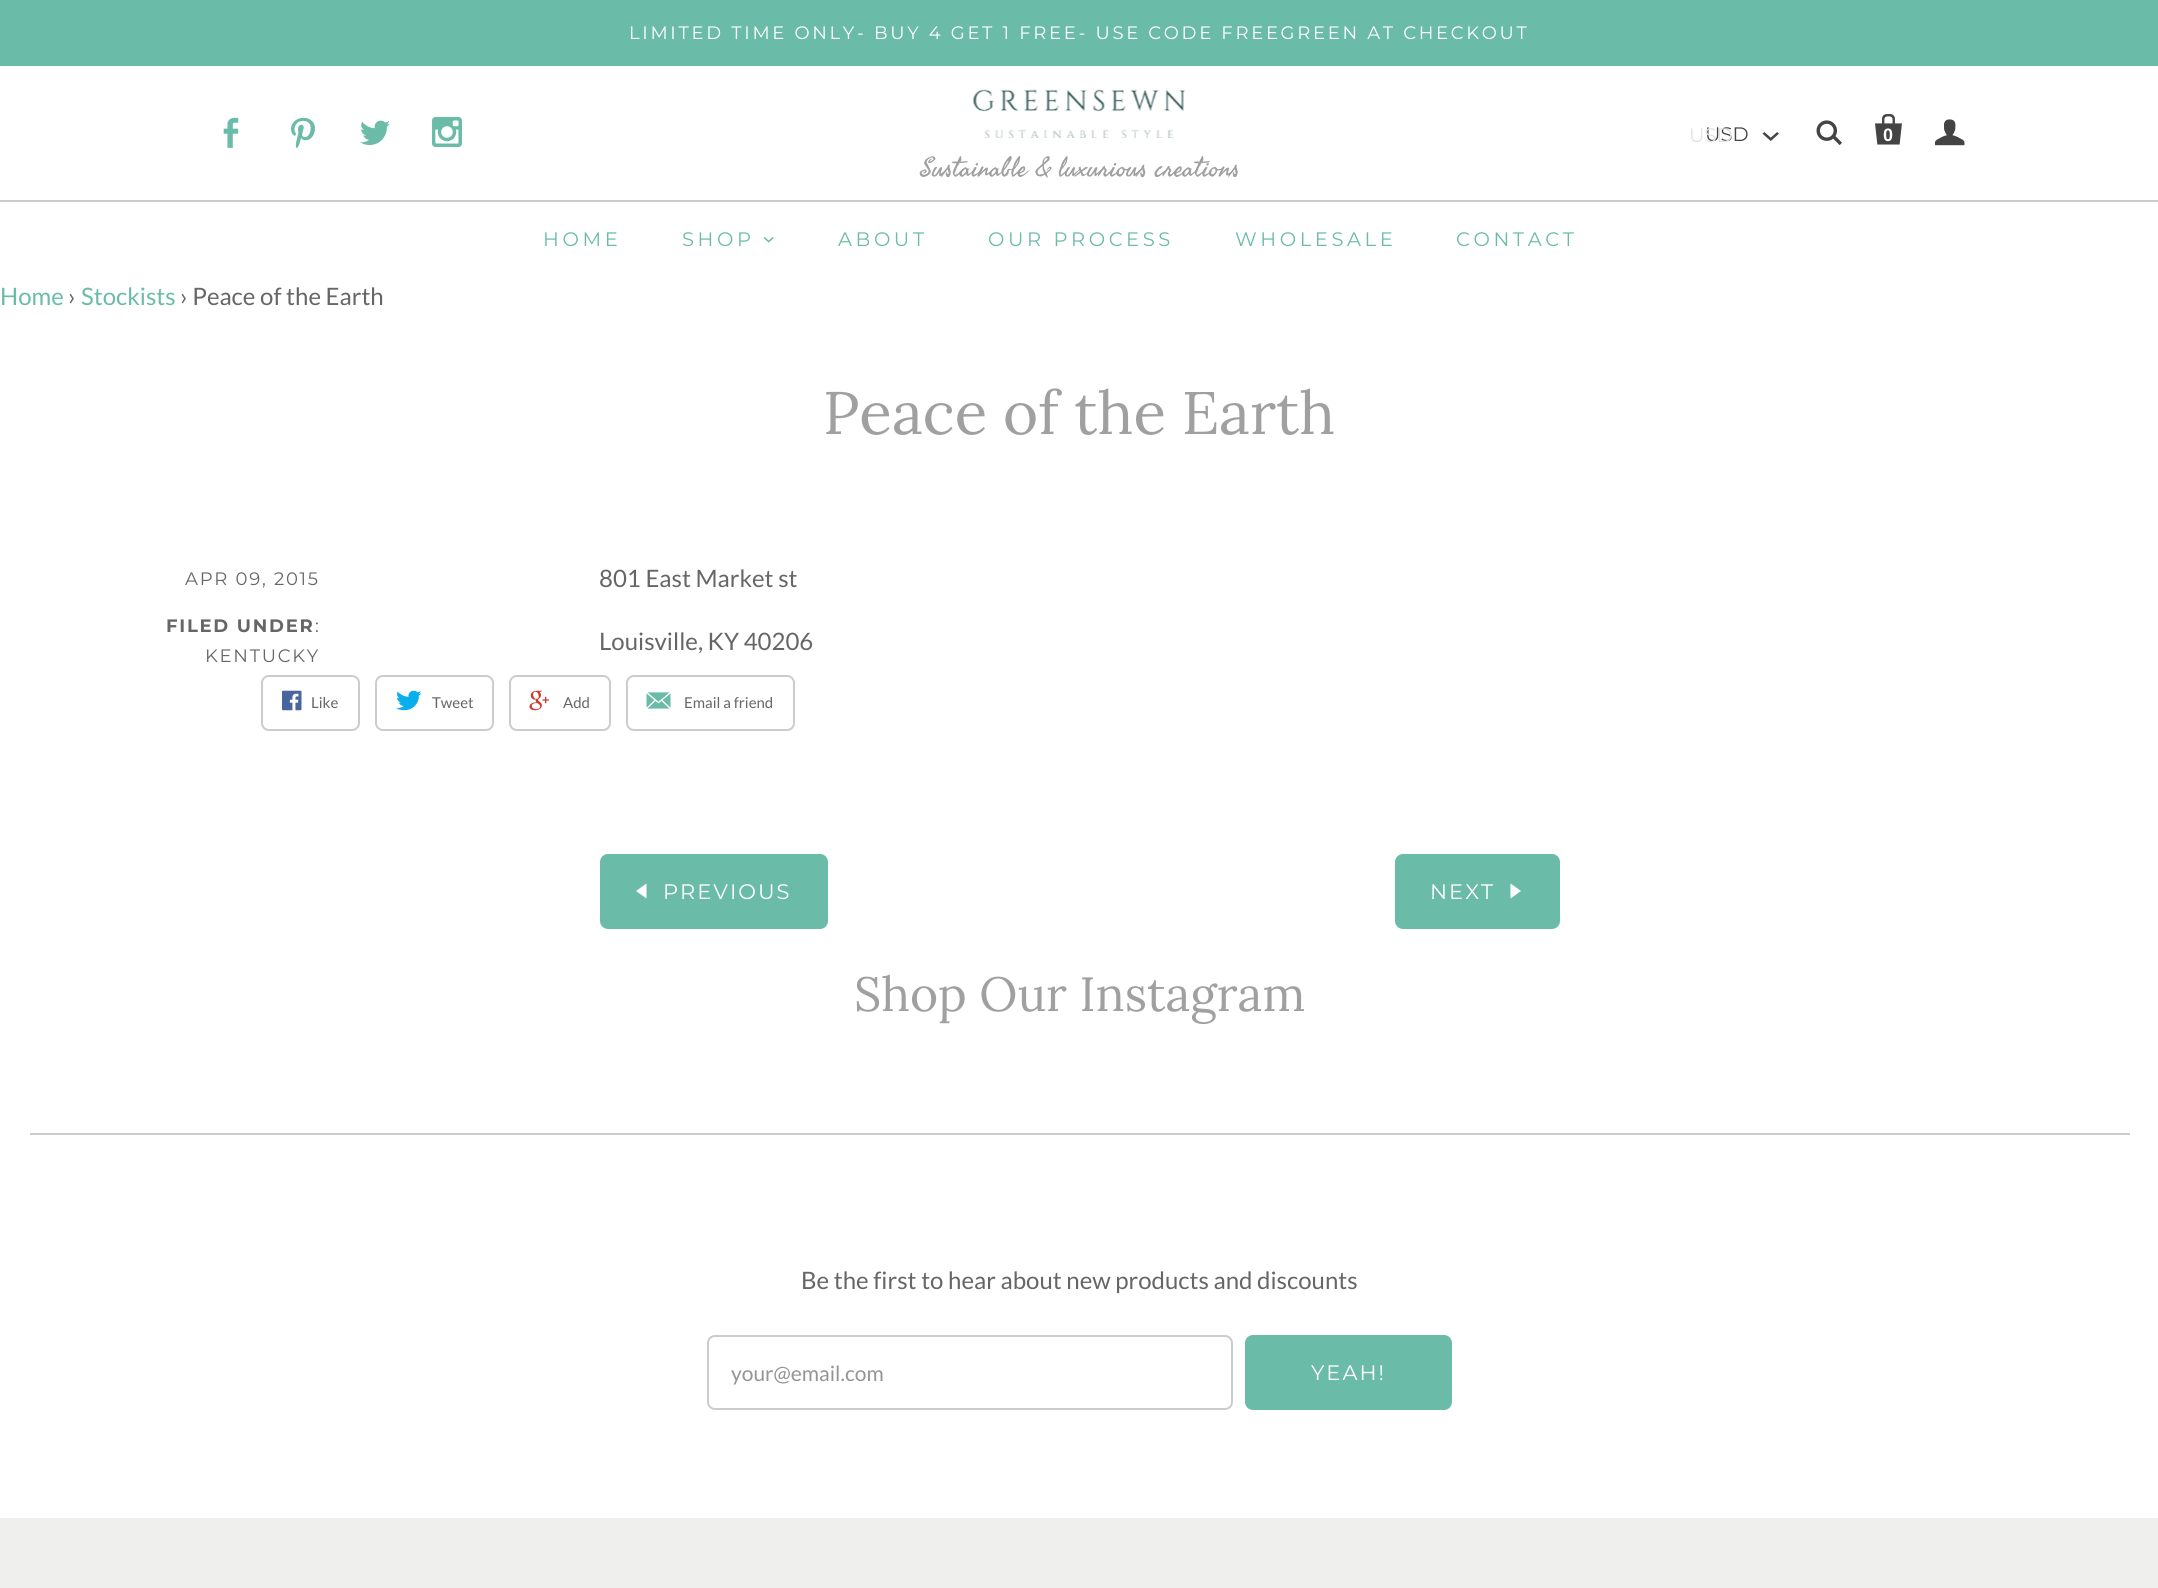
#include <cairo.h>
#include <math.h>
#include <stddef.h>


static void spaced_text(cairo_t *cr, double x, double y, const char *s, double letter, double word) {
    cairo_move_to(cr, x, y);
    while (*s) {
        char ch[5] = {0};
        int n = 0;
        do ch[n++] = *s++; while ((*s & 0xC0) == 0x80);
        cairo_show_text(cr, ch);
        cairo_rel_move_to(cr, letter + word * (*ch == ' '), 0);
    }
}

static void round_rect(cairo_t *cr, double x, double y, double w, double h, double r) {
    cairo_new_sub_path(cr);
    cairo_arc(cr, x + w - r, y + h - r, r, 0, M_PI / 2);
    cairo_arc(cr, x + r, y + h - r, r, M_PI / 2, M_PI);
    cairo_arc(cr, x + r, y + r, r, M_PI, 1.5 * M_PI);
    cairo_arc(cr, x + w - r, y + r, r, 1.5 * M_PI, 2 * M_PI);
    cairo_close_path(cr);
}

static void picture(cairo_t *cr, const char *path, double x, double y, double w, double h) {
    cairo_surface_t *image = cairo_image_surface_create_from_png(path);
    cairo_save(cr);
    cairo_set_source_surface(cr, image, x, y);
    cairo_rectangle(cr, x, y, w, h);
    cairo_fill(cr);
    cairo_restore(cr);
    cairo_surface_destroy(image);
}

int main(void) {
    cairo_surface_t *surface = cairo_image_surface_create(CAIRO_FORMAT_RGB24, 2158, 1588);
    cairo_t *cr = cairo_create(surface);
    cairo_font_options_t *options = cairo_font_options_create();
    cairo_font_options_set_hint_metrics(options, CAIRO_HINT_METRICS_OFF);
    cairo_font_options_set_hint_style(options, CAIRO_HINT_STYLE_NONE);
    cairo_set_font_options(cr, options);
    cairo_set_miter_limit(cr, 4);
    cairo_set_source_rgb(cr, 1, 1, 1);
    cairo_paint(cr);
    cairo_set_source_rgb(cr, 0.416, 0.737, 0.663);
    cairo_rectangle(cr, 0, 0, 2158, 66);
    cairo_fill(cr);
    cairo_select_font_face(cr, "Montserrat", CAIRO_FONT_SLANT_NORMAL, CAIRO_FONT_WEIGHT_NORMAL);
    cairo_set_font_size(cr, 18);
    cairo_set_source_rgb(cr, 1, 1, 1);
    spaced_text(cr, 629, 39, "LIMITED TIME ONLY- BUY 4 GET 1 FREE- USE CODE FREEGREEN AT CHECKOUT", 2.7, 0);
    picture(cr, "img1.png", 223, 117, 16, 31);
    picture(cr, "img2.png", 291, 117, 24, 31);
    picture(cr, "img3.png", 360, 120, 30, 25);
    picture(cr, "img4.png", 432, 117, 30, 30);
    cairo_set_font_size(cr, 19.5);
    cairo_set_source_rgb(cr, 0.267, 0.267, 0.267);
    cairo_move_to(cr, 1705, 141);
    cairo_show_text(cr, "USD");
    cairo_set_source_rgb(cr, 0.886, 0.886, 0.886);
    cairo_move_to(cr, 1689, 142);
    cairo_show_text(cr, "USD");
    picture(cr, "img5.png", 1762, 132, 17, 9);
    picture(cr, "img6.png", 1816, 120, 26, 26);
    picture(cr, "img7.png", 1875, 114, 27, 31);
    cairo_select_font_face(cr, "Liberation Sans", CAIRO_FONT_SLANT_NORMAL, CAIRO_FONT_WEIGHT_BOLD);
    cairo_set_font_size(cr, 18);
    cairo_set_source_rgb(cr, 1, 1, 1);
    cairo_move_to(cr, 1883, 141);
    cairo_show_text(cr, "0");
    picture(cr, "img8.png", 1935, 119, 30, 27);
    picture(cr, "img9.png", 973, 89, 213, 49);
    cairo_select_font_face(cr, "Seaweed Script", CAIRO_FONT_SLANT_NORMAL, CAIRO_FONT_WEIGHT_NORMAL);
    cairo_set_font_size(cr, 27);
    cairo_set_source_rgb(cr, 0.627, 0.627, 0.627);
    cairo_move_to(cr, 920, 176);
    cairo_show_text(cr, "Sustainable & luxurious creations");
    cairo_set_source_rgb(cr, 0.8, 0.8, 0.8);
    cairo_rectangle(cr, 0, 200, 2158, 2);
    cairo_fill(cr);
    cairo_select_font_face(cr, "Montserrat", CAIRO_FONT_SLANT_NORMAL, CAIRO_FONT_WEIGHT_NORMAL);
    cairo_set_font_size(cr, 19.5);
    cairo_set_source_rgb(cr, 0.416, 0.737, 0.663);
    spaced_text(cr, 543, 246, "HOME", 3.6, 0);
    spaced_text(cr, 682, 246, "SHOP", 3.6, 0);
    picture(cr, "img10.png", 763, 237, 11, 6);
    spaced_text(cr, 838, 246, "ABOUT", 3.6, 0);
    spaced_text(cr, 988, 246, "OUR PROCESS", 3.6, 0);
    spaced_text(cr, 1235, 246, "WHOLESALE", 3.6, 0);
    spaced_text(cr, 1456, 246, "CONTACT", 3.6, 0);
    cairo_select_font_face(cr, "Lato", CAIRO_FONT_SLANT_NORMAL, CAIRO_FONT_WEIGHT_NORMAL);
    cairo_set_font_size(cr, 24);
    cairo_move_to(cr, 0, 305);
    cairo_show_text(cr, "Home");
    cairo_set_source_rgb(cr, 0.4, 0.4, 0.4);
    cairo_move_to(cr, 68, 305);
    cairo_show_text(cr, "›");
    cairo_set_source_rgb(cr, 0.416, 0.737, 0.663);
    cairo_move_to(cr, 81, 305);
    cairo_show_text(cr, "Stockists");
    cairo_set_source_rgb(cr, 0.4, 0.4, 0.4);
    cairo_move_to(cr, 180, 305);
    cairo_show_text(cr, "› Peace of the Earth");
    cairo_select_font_face(cr, "Lora", CAIRO_FONT_SLANT_NORMAL, CAIRO_FONT_WEIGHT_NORMAL);
    cairo_set_font_size(cr, 60);
    cairo_set_source_rgb(cr, 0.627, 0.627, 0.627);
    cairo_move_to(cr, 823, 434);
    cairo_show_text(cr, "Peace of the Earth");
    cairo_select_font_face(cr, "Montserrat", CAIRO_FONT_SLANT_NORMAL, CAIRO_FONT_WEIGHT_NORMAL);
    cairo_set_font_size(cr, 18);
    cairo_set_source_rgb(cr, 0.4, 0.4, 0.4);
    spaced_text(cr, 185, 585, "APR 09, 2015", 1.75, 0);
    cairo_select_font_face(cr, "Montserrat", CAIRO_FONT_SLANT_NORMAL, CAIRO_FONT_WEIGHT_BOLD);
    spaced_text(cr, 166, 632, "FILED UNDER", 1.75, 0);
    cairo_select_font_face(cr, "Montserrat", CAIRO_FONT_SLANT_NORMAL, CAIRO_FONT_WEIGHT_NORMAL);
    spaced_text(cr, 315, 632, ":", 1.75, 0);
    spaced_text(cr, 205, 662, "KENTUCKY", 1.75, 0);
    cairo_select_font_face(cr, "Lato", CAIRO_FONT_SLANT_NORMAL, CAIRO_FONT_WEIGHT_NORMAL);
    cairo_set_font_size(cr, 24);
    cairo_move_to(cr, 599, 587);
    cairo_show_text(cr, "801 East Market st");
    cairo_move_to(cr, 599, 650);
    cairo_show_text(cr, "Louisville, KY 40206");
    round_rect(cr, 262, 676, 97, 54, 7);
    cairo_set_source_rgb(cr, 0.8, 0.8, 0.8);
    cairo_stroke(cr);
    picture(cr, "img11.png", 282, 690, 20, 21);
    cairo_set_font_size(cr, 15);
    cairo_set_source_rgb(cr, 0.4, 0.4, 0.4);
    cairo_move_to(cr, 311, 708);
    cairo_show_text(cr, "Like");
    round_rect(cr, 376, 676, 117, 54, 7);
    cairo_set_source_rgb(cr, 0.8, 0.8, 0.8);
    cairo_stroke(cr);
    picture(cr, "img12.png", 396, 690, 26, 21);
    cairo_set_source_rgb(cr, 0.4, 0.4, 0.4);
    cairo_move_to(cr, 432, 708);
    cairo_show_text(cr, "Tweet");
    round_rect(cr, 510, 676, 100, 54, 7);
    cairo_set_source_rgb(cr, 0.8, 0.8, 0.8);
    cairo_stroke(cr);
    picture(cr, "img13.png", 529, 690, 20, 21);
    cairo_set_source_rgb(cr, 0.4, 0.4, 0.4);
    cairo_move_to(cr, 563, 708);
    cairo_show_text(cr, "Add");
    round_rect(cr, 627, 676, 167, 54, 7);
    cairo_set_source_rgb(cr, 0.8, 0.8, 0.8);
    cairo_stroke(cr);
    picture(cr, "img14.png", 646, 692, 25, 17);
    cairo_set_source_rgb(cr, 0.4, 0.4, 0.4);
    cairo_move_to(cr, 684, 708);
    cairo_show_text(cr, "Email a friend");
    cairo_set_source_rgb(cr, 0.416, 0.737, 0.663);
    round_rect(cr, 600, 854, 228, 75, 8);
    cairo_fill(cr);
    cairo_set_source_rgb(cr, 1, 1, 1);
    cairo_new_path(cr);
    cairo_move_to(cr, 646.5, 898.5);
    cairo_line_to(cr, 646.5, 883.5);
    cairo_line_to(cr, 636, 891);
    cairo_close_path(cr);
    cairo_fill(cr);
    cairo_select_font_face(cr, "Montserrat", CAIRO_FONT_SLANT_NORMAL, CAIRO_FONT_WEIGHT_NORMAL);
    cairo_set_font_size(cr, 21);
    spaced_text(cr, 663, 899, "PREVIOUS", 2, 0);
    cairo_set_source_rgb(cr, 0.416, 0.737, 0.663);
    round_rect(cr, 1395, 854, 165, 75, 8);
    cairo_fill(cr);
    cairo_set_source_rgb(cr, 1, 1, 1);
    spaced_text(cr, 1430, 899, "NEXT", 2, 0);
    cairo_new_path(cr);
    cairo_move_to(cr, 1510.5, 883.5);
    cairo_line_to(cr, 1510.5, 898.5);
    cairo_line_to(cr, 1521, 891);
    cairo_close_path(cr);
    cairo_fill(cr);
    cairo_select_font_face(cr, "Lora", CAIRO_FONT_SLANT_NORMAL, CAIRO_FONT_WEIGHT_NORMAL);
    cairo_set_font_size(cr, 48);
    cairo_set_source_rgb(cr, 0.627, 0.627, 0.627);
    cairo_move_to(cr, 854, 1011);
    cairo_show_text(cr, "Shop Our Instagram");
    cairo_set_source_rgb(cr, 0.8, 0.8, 0.8);
    cairo_rectangle(cr, 30, 1133, 2100, 2);
    cairo_fill(cr);
    cairo_select_font_face(cr, "Lato", CAIRO_FONT_SLANT_NORMAL, CAIRO_FONT_WEIGHT_NORMAL);
    cairo_set_font_size(cr, 24);
    cairo_set_source_rgb(cr, 0.4, 0.4, 0.4);
    cairo_move_to(cr, 801, 1289);
    cairo_show_text(cr, "Be the first to hear about new products and discounts");
    round_rect(cr, 708, 1336, 524, 73, 7);
    cairo_set_source_rgb(cr, 0.8, 0.8, 0.8);
    cairo_stroke(cr);
    cairo_set_font_size(cr, 21);
    cairo_set_source_rgb(cr, 0.58, 0.58, 0.58);
    cairo_move_to(cr, 731, 1381);
    cairo_show_text(cr, "your@email.com");
    cairo_set_source_rgb(cr, 0.416, 0.737, 0.663);
    round_rect(cr, 1245, 1335, 207, 75, 8);
    cairo_fill(cr);
    cairo_select_font_face(cr, "Montserrat", CAIRO_FONT_SLANT_NORMAL, CAIRO_FONT_WEIGHT_NORMAL);
    cairo_set_source_rgb(cr, 1, 1, 1);
    spaced_text(cr, 1311, 1380, "YEAH!", 2, 0);
    cairo_set_source_rgb(cr, 0.937, 0.937, 0.929);
    cairo_rectangle(cr, 0, 1518, 2158, 70);
    cairo_fill(cr);
    cairo_surface_write_to_png(surface, "page.png");
    cairo_font_options_destroy(options);
    cairo_destroy(cr);
    cairo_surface_destroy(surface);
    return 0;
}
